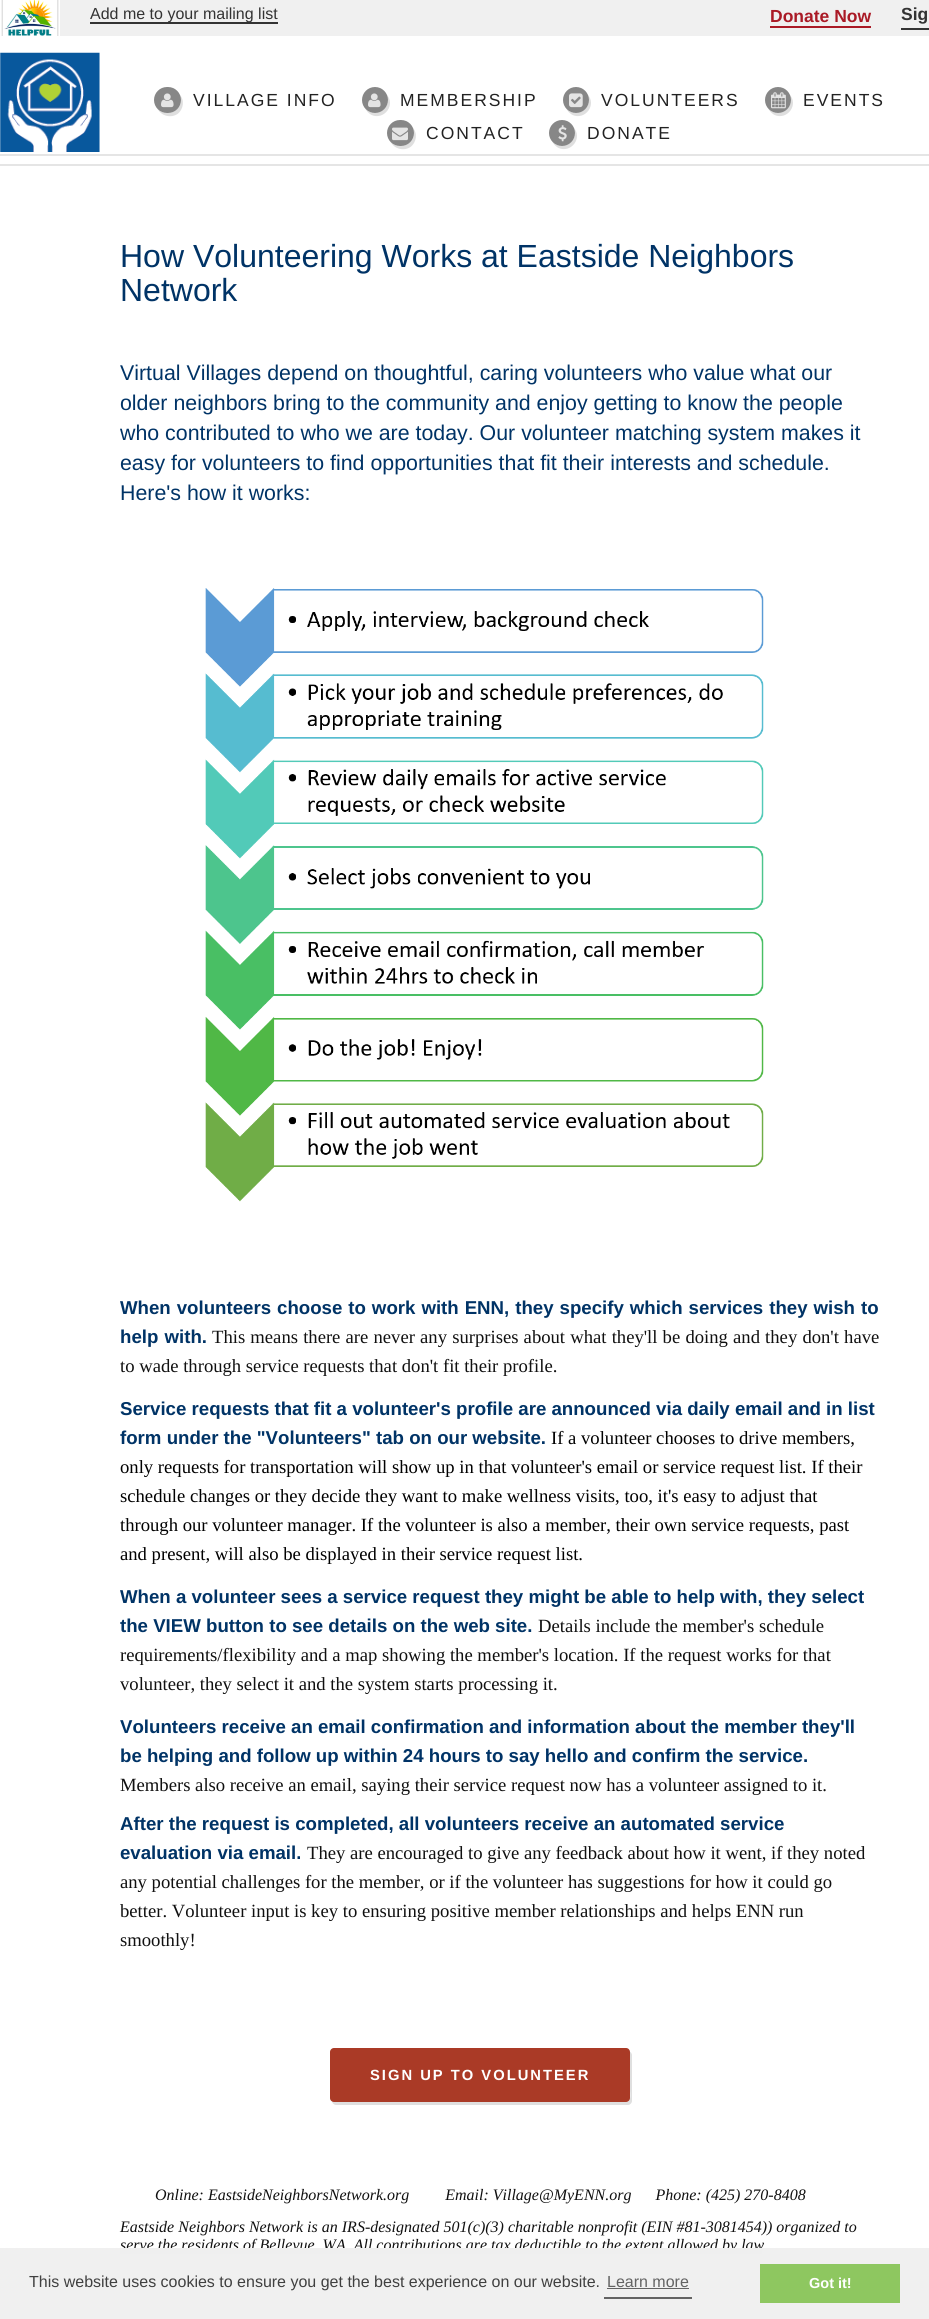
#include <cairo.h>
#include <math.h>
#include <stddef.h>


static void spaced_text(cairo_t *cr, double x, double y, const char *s, double letter, double word) {
    cairo_move_to(cr, x, y);
    while (*s) {
        char ch[5] = {0};
        int n = 0;
        do ch[n++] = *s++; while ((*s & 0xC0) == 0x80);
        cairo_show_text(cr, ch);
        cairo_rel_move_to(cr, letter + word * (*ch == ' '), 0);
    }
}

static void round_rect(cairo_t *cr, double x, double y, double w, double h, double r) {
    cairo_new_sub_path(cr);
    cairo_arc(cr, x + w - r, y + h - r, r, 0, M_PI / 2);
    cairo_arc(cr, x + r, y + h - r, r, M_PI / 2, M_PI);
    cairo_arc(cr, x + r, y + r, r, M_PI, 1.5 * M_PI);
    cairo_arc(cr, x + w - r, y + r, r, 1.5 * M_PI, 2 * M_PI);
    cairo_close_path(cr);
}

static void picture(cairo_t *cr, const char *path, double x, double y, double w, double h) {
    cairo_surface_t *image = cairo_image_surface_create_from_png(path);
    cairo_save(cr);
    cairo_set_source_surface(cr, image, x, y);
    cairo_rectangle(cr, x, y, w, h);
    cairo_fill(cr);
    cairo_restore(cr);
    cairo_surface_destroy(image);
}

int main(void) {
    cairo_surface_t *surface = cairo_image_surface_create(CAIRO_FORMAT_RGB24, 929, 2319);
    cairo_t *cr = cairo_create(surface);
    cairo_font_options_t *options = cairo_font_options_create();
    cairo_font_options_set_hint_metrics(options, CAIRO_HINT_METRICS_OFF);
    cairo_font_options_set_hint_style(options, CAIRO_HINT_STYLE_NONE);
    cairo_set_font_options(cr, options);
    cairo_set_miter_limit(cr, 4);
    cairo_set_source_rgb(cr, 0.941, 0.941, 0.941);
    cairo_paint(cr);
    picture(cr, "img1.png", 0, 0, 60, 36);
    cairo_set_source_rgb(cr, 0.2, 0.2, 0.2);
    cairo_rectangle(cr, 90, 22, 188, 2);
    cairo_fill(cr);
    cairo_select_font_face(cr, "Liberation Sans", CAIRO_FONT_SLANT_NORMAL, CAIRO_FONT_WEIGHT_NORMAL);
    cairo_set_font_size(cr, 16);
    cairo_move_to(cr, 90, 19);
    cairo_show_text(cr, "Add me to your mailing list");
    cairo_select_font_face(cr, "Liberation Sans", CAIRO_FONT_SLANT_NORMAL, CAIRO_FONT_WEIGHT_BOLD);
    cairo_set_font_size(cr, 17.5);
    cairo_set_source_rgb(cr, 0.667, 0.102, 0.149);
    cairo_move_to(cr, 770, 22);
    cairo_show_text(cr, "Donate Now");
    cairo_rectangle(cr, 770, 26, 101, 2);
    cairo_fill(cr);
    cairo_set_source_rgb(cr, 0.2, 0.2, 0.2);
    cairo_rectangle(cr, 901, 28, 28, 2);
    cairo_fill(cr);
    cairo_move_to(cr, 901, 20);
    cairo_show_text(cr, "Sig");
    cairo_set_source_rgb(cr, 1, 1, 1);
    cairo_rectangle(cr, 0, 36, 929, 118);
    cairo_fill(cr);
    cairo_set_source_rgb(cr, 0.898, 0.898, 0.898);
    cairo_rectangle(cr, 0, 154, 929, 2);
    cairo_fill(cr);
    cairo_set_source_rgb(cr, 1, 1, 1);
    cairo_rectangle(cr, 0, 156, 929, 8);
    cairo_fill(cr);
    cairo_set_source_rgb(cr, 0.898, 0.898, 0.898);
    cairo_rectangle(cr, 0, 164, 929, 2);
    cairo_fill(cr);
    picture(cr, "img2.png", 0, 52, 100, 100);
    cairo_set_source_rgb(cr, 0.875, 0.875, 0.875);
    cairo_new_path(cr);
    cairo_move_to(cr, 157.5, 108.5);
    cairo_curve_to(cr, 161, 116, 170.5, 118.5, 177.5, 114);
    cairo_curve_to(cr, 183.5, 109.5, 185, 100, 179.5, 94.5);
    cairo_curve_to(cr, 186.5, 108.5, 167, 119.5, 157.5, 108.5);
    cairo_close_path(cr);
    cairo_fill(cr);
    cairo_set_source_rgb(cr, 0.529, 0.529, 0.529);
    round_rect(cr, 154, 87, 27, 26, 13);
    cairo_fill(cr);
    picture(cr, "img3.png", 161, 93, 13, 15);
    cairo_select_font_face(cr, "Liberation Sans", CAIRO_FONT_SLANT_NORMAL, CAIRO_FONT_WEIGHT_NORMAL);
    cairo_set_source_rgb(cr, 0.133, 0.133, 0.133);
    spaced_text(cr, 193, 106, "VILLAGE INFO", 2, 0);
    cairo_set_source_rgb(cr, 0.875, 0.875, 0.875);
    cairo_new_path(cr);
    cairo_move_to(cr, 365.5, 108.5);
    cairo_curve_to(cr, 366.5, 111.5, 369, 113.5, 371.5, 115);
    cairo_curve_to(cr, 384.5, 120.5, 396, 104.5, 386.5, 94.5);
    cairo_curve_to(cr, 393, 107.5, 375, 119.5, 365.5, 108.5);
    cairo_close_path(cr);
    cairo_fill(cr);
    cairo_set_source_rgb(cr, 0.529, 0.529, 0.529);
    cairo_arc(cr, 375, 100, 13, 0, 2 * M_PI);
    cairo_fill(cr);
    picture(cr, "img3.png", 368, 93, 13, 15);
    cairo_set_source_rgb(cr, 0.133, 0.133, 0.133);
    spaced_text(cr, 400, 106, "MEMBERSHIP", 2, 0);
    cairo_set_source_rgb(cr, 0.875, 0.875, 0.875);
    cairo_new_path(cr);
    cairo_move_to(cr, 566.5, 108.5);
    cairo_curve_to(cr, 567.5, 111.5, 570, 113.5, 572.5, 115);
    cairo_curve_to(cr, 585.5, 120.5, 597, 104.5, 587.5, 94.5);
    cairo_curve_to(cr, 594, 107.5, 576, 119.5, 566.5, 108.5);
    cairo_close_path(cr);
    cairo_fill(cr);
    cairo_set_source_rgb(cr, 0.529, 0.529, 0.529);
    cairo_arc(cr, 576, 100, 13, 0, 2 * M_PI);
    cairo_fill(cr);
    picture(cr, "img4.png", 569, 93, 14, 15);
    cairo_set_source_rgb(cr, 0.133, 0.133, 0.133);
    spaced_text(cr, 601, 106, "VOLUNTEERS", 2, 0);
    cairo_set_source_rgb(cr, 0.875, 0.875, 0.875);
    cairo_new_path(cr);
    cairo_move_to(cr, 768.5, 108.5);
    cairo_curve_to(cr, 769.5, 111.5, 772, 113.5, 774.5, 115);
    cairo_curve_to(cr, 787.5, 120.5, 799, 104.5, 789.5, 94.5);
    cairo_curve_to(cr, 796, 107.5, 778, 119.5, 768.5, 108.5);
    cairo_close_path(cr);
    cairo_fill(cr);
    cairo_set_source_rgb(cr, 0.529, 0.529, 0.529);
    cairo_arc(cr, 778, 100, 13, 0, 2 * M_PI);
    cairo_fill(cr);
    picture(cr, "img5.png", 771, 92, 15, 17);
    cairo_set_source_rgb(cr, 0.133, 0.133, 0.133);
    spaced_text(cr, 803, 106, "EVENTS", 2, 0);
    cairo_set_source_rgb(cr, 0.875, 0.875, 0.875);
    cairo_new_path(cr);
    cairo_move_to(cr, 390.5, 141.5);
    cairo_curve_to(cr, 394, 149, 403.5, 151.5, 410.5, 147);
    cairo_curve_to(cr, 416.5, 142.5, 418, 133, 412.5, 127.5);
    cairo_curve_to(cr, 419.5, 141.5, 400, 152.5, 390.5, 141.5);
    cairo_close_path(cr);
    cairo_fill(cr);
    cairo_set_source_rgb(cr, 0.529, 0.529, 0.529);
    round_rect(cr, 387, 120, 27, 26, 13);
    cairo_fill(cr);
    picture(cr, "img6.png", 392, 127, 16, 14);
    cairo_set_source_rgb(cr, 0.133, 0.133, 0.133);
    spaced_text(cr, 426, 139, "CONTACT", 2, 0);
    cairo_set_source_rgb(cr, 0.875, 0.875, 0.875);
    cairo_new_path(cr);
    cairo_move_to(cr, 552.5, 141.5);
    cairo_curve_to(cr, 553.5, 144.5, 556, 146.5, 558.5, 148);
    cairo_curve_to(cr, 571.5, 153.5, 583, 137.5, 573.5, 127.5);
    cairo_curve_to(cr, 580, 140.5, 562, 152.5, 552.5, 141.5);
    cairo_close_path(cr);
    cairo_fill(cr);
    cairo_set_source_rgb(cr, 0.529, 0.529, 0.529);
    cairo_arc(cr, 562, 133, 13, 0, 2 * M_PI);
    cairo_fill(cr);
    picture(cr, "img7.png", 558, 125, 9, 17);
    cairo_set_source_rgb(cr, 0.133, 0.133, 0.133);
    spaced_text(cr, 587, 139, "DONATE", 2, 0);
    cairo_set_source_rgb(cr, 1, 1, 1);
    cairo_rectangle(cr, 0, 166, 929, 2082);
    cairo_fill(cr);
    cairo_set_font_size(cr, 32);
    cairo_set_source_rgb(cr, 0, 0.2, 0.4);
    cairo_move_to(cr, 120, 267);
    cairo_show_text(cr, "How Volunteering Works at Eastside Neighbors");
    cairo_move_to(cr, 120, 301);
    cairo_show_text(cr, "Network");
    cairo_set_font_size(cr, 21.35);
    cairo_move_to(cr, 120, 380);
    cairo_show_text(cr, "Virtual Villages depend on thoughtful, caring volunteers who value what our");
    cairo_move_to(cr, 120, 410);
    cairo_show_text(cr, "older neighbors bring to the community and enjoy getting to know the people");
    cairo_move_to(cr, 120, 440);
    cairo_show_text(cr, "who contributed to who we are today. Our volunteer matching system makes it");
    cairo_move_to(cr, 120, 470);
    cairo_show_text(cr, "easy for volunteers to find opportunities that fit their interests and schedule.");
    cairo_move_to(cr, 120, 500);
    cairo_show_text(cr, "Here's how it works:");
    picture(cr, "img8.png", 205, 588, 559, 614);
    cairo_select_font_face(cr, "Liberation Sans", CAIRO_FONT_SLANT_NORMAL, CAIRO_FONT_WEIGHT_BOLD);
    cairo_set_font_size(cr, 18.65);
    spaced_text(cr, 120, 1314, "When volunteers choose to work with ENN, they specify which services they wish to", 0, 0.8);
    spaced_text(cr, 120, 1343, "help with.", 0, 1);
    cairo_select_font_face(cr, "Liberation Serif", CAIRO_FONT_SLANT_NORMAL, CAIRO_FONT_WEIGHT_NORMAL);
    cairo_set_source_rgb(cr, 0.063, 0.063, 0.063);
    spaced_text(cr, 212, 1343, "This means there are never any surprises about what they'll be doing and they don't have", 0, 0.5);
    cairo_move_to(cr, 120, 1372);
    cairo_show_text(cr, "to wade through service requests that don't fit their profile.");
    cairo_select_font_face(cr, "Liberation Sans", CAIRO_FONT_SLANT_NORMAL, CAIRO_FONT_WEIGHT_BOLD);
    cairo_set_source_rgb(cr, 0, 0.2, 0.4);
    cairo_move_to(cr, 120, 1415);
    cairo_show_text(cr, "Service requests that fit a volunteer's profile are announced via daily email and in list");
    cairo_move_to(cr, 120, 1444);
    cairo_show_text(cr, "form under the \"Volunteers\" tab on our website.");
    cairo_select_font_face(cr, "Liberation Serif", CAIRO_FONT_SLANT_NORMAL, CAIRO_FONT_WEIGHT_NORMAL);
    cairo_set_source_rgb(cr, 0, 0, 0);
    cairo_move_to(cr, 551, 1444);
    cairo_show_text(cr, "If a volunteer chooses to drive members,");
    cairo_move_to(cr, 120, 1473);
    cairo_show_text(cr, "only requests for transportation will show up in that volunteer's email or service request list. If their");
    cairo_move_to(cr, 120, 1502);
    cairo_show_text(cr, "schedule changes or they decide they want to make wellness visits, too, it's easy to adjust that");
    cairo_move_to(cr, 120, 1531);
    cairo_show_text(cr, "through our volunteer manager. If the volunteer is also a member, their own service requests, past");
    cairo_move_to(cr, 120, 1560);
    cairo_show_text(cr, "and present, will also be displayed in their service request list.");
    cairo_select_font_face(cr, "Liberation Sans", CAIRO_FONT_SLANT_NORMAL, CAIRO_FONT_WEIGHT_BOLD);
    cairo_set_source_rgb(cr, 0, 0.2, 0.4);
    cairo_move_to(cr, 120, 1603);
    cairo_show_text(cr, "When a volunteer sees a service request they might be able to help with, they select");
    cairo_move_to(cr, 120, 1632);
    cairo_show_text(cr, "the VIEW button to see details on the web site.");
    cairo_select_font_face(cr, "Liberation Serif", CAIRO_FONT_SLANT_NORMAL, CAIRO_FONT_WEIGHT_NORMAL);
    cairo_set_source_rgb(cr, 0.063, 0.063, 0.063);
    cairo_move_to(cr, 538, 1632);
    cairo_show_text(cr, "Details include the member's schedule");
    cairo_move_to(cr, 120, 1661);
    cairo_show_text(cr, "requirements/flexibility and a map showing the member's location. If the request works for that");
    cairo_move_to(cr, 120, 1690);
    cairo_show_text(cr, "volunteer, they select it and the system starts processing it.");
    cairo_select_font_face(cr, "Liberation Sans", CAIRO_FONT_SLANT_NORMAL, CAIRO_FONT_WEIGHT_BOLD);
    cairo_set_source_rgb(cr, 0, 0.2, 0.4);
    cairo_move_to(cr, 120, 1733);
    cairo_show_text(cr, "Volunteers receive an email confirmation and information about the member they'll");
    cairo_move_to(cr, 120, 1762);
    cairo_show_text(cr, "be helping and follow up within 24 hours to say hello and confirm the service.");
    cairo_select_font_face(cr, "Liberation Serif", CAIRO_FONT_SLANT_NORMAL, CAIRO_FONT_WEIGHT_NORMAL);
    cairo_set_source_rgb(cr, 0.063, 0.063, 0.063);
    cairo_move_to(cr, 120, 1791);
    cairo_show_text(cr, "Members also receive an email, saying their service request now has a volunteer assigned to it.");
    cairo_select_font_face(cr, "Liberation Sans", CAIRO_FONT_SLANT_NORMAL, CAIRO_FONT_WEIGHT_BOLD);
    cairo_set_source_rgb(cr, 0, 0.2, 0.4);
    cairo_move_to(cr, 120, 1830);
    cairo_show_text(cr, "After the request is completed, all volunteers receive an automated service");
    cairo_move_to(cr, 120, 1859);
    cairo_show_text(cr, "evaluation via email.");
    cairo_select_font_face(cr, "Liberation Serif", CAIRO_FONT_SLANT_NORMAL, CAIRO_FONT_WEIGHT_NORMAL);
    cairo_set_source_rgb(cr, 0.063, 0.063, 0.063);
    cairo_move_to(cr, 307, 1859);
    cairo_show_text(cr, "They are encouraged to give any feedback about how it went, if they noted");
    cairo_move_to(cr, 120, 1888);
    cairo_show_text(cr, "any potential challenges for the member, or if the volunteer has suggestions for how it could go");
    cairo_move_to(cr, 120, 1917);
    cairo_show_text(cr, "better. Volunteer input is key to ensuring positive member relationships and helps ENN run");
    cairo_move_to(cr, 120, 1946);
    cairo_show_text(cr, "smoothly!");
    cairo_set_source_rgb(cr, 0.875, 0.875, 0.875);
    cairo_new_path(cr);
    cairo_move_to(cr, 332, 2101);
    cairo_curve_to(cr, 332, 2103, 334, 2105, 336, 2105);
    cairo_line_to(cr, 628, 2105);
    cairo_curve_to(cr, 630, 2105, 632, 2103, 632, 2101);
    cairo_line_to(cr, 632, 2055);
    cairo_curve_to(cr, 632, 2054, 631, 2052, 630, 2052);
    cairo_line_to(cr, 630, 2090);
    cairo_curve_to(cr, 630, 2093, 632, 2102, 626, 2102);
    cairo_line_to(cr, 334, 2102);
    cairo_close_path(cr);
    cairo_fill(cr);
    cairo_set_source_rgb(cr, 0.667, 0.227, 0.149);
    round_rect(cr, 330, 2048, 300, 54, 4);
    cairo_fill(cr);
    cairo_select_font_face(cr, "Liberation Sans", CAIRO_FONT_SLANT_NORMAL, CAIRO_FONT_WEIGHT_BOLD);
    cairo_set_font_size(cr, 14.75);
    cairo_set_source_rgb(cr, 1, 1, 1);
    spaced_text(cr, 370, 2080, "SIGN UP TO VOLUNTEER", 2, 0);
    cairo_select_font_face(cr, "Liberation Serif", CAIRO_FONT_SLANT_ITALIC, CAIRO_FONT_WEIGHT_NORMAL);
    cairo_set_font_size(cr, 16);
    cairo_set_source_rgb(cr, 0.063, 0.063, 0.063);
    cairo_move_to(cr, 155, 2200);
    cairo_show_text(cr, "Online: EastsideNeighborsNetwork.org         Email: Village@MyENN.org      Phone: (425) 270-8408");
    cairo_move_to(cr, 120, 2232);
    cairo_show_text(cr, "Eastside Neighbors Network is an IRS-designated 501(c)(3) charitable nonprofit (EIN #81-3081454)) organized to");
    cairo_move_to(cr, 120, 2250);
    cairo_show_text(cr, "serve the residents of Bellevue, WA. All contributions are tax deductible to the extent allowed by law");
    cairo_set_source_rgb(cr, 0.937, 0.937, 0.937);
    cairo_rectangle(cr, 120, 2248, 642, 6);
    cairo_fill(cr);
    cairo_select_font_face(cr, "Liberation Sans", CAIRO_FONT_SLANT_NORMAL, CAIRO_FONT_WEIGHT_NORMAL);
    cairo_set_source_rgb(cr, 0.251, 0.251, 0.251);
    cairo_move_to(cr, 29, 2287);
    cairo_show_text(cr, "This website uses cookies to ensure you get the best experience on our website.");
    cairo_set_source_rgb(cr, 0.388, 0.388, 0.388);
    cairo_rectangle(cr, 604, 2297, 88, 2);
    cairo_fill(cr);
    cairo_move_to(cr, 607, 2287);
    cairo_show_text(cr, "Learn more");
    cairo_rectangle(cr, 607, 2288, 82, 1);
    cairo_fill(cr);
    cairo_set_source_rgb(cr, 0.557, 0.78, 0.376);
    cairo_rectangle(cr, 760, 2264, 140, 39);
    cairo_fill(cr);
    cairo_select_font_face(cr, "Liberation Sans", CAIRO_FONT_SLANT_NORMAL, CAIRO_FONT_WEIGHT_BOLD);
    cairo_set_font_size(cr, 14.5);
    cairo_set_source_rgb(cr, 1, 1, 1);
    cairo_move_to(cr, 809, 2288);
    cairo_show_text(cr, "Got it!");
    cairo_surface_write_to_png(surface, "page.png");
    cairo_font_options_destroy(options);
    cairo_destroy(cr);
    cairo_surface_destroy(surface);
    return 0;
}
